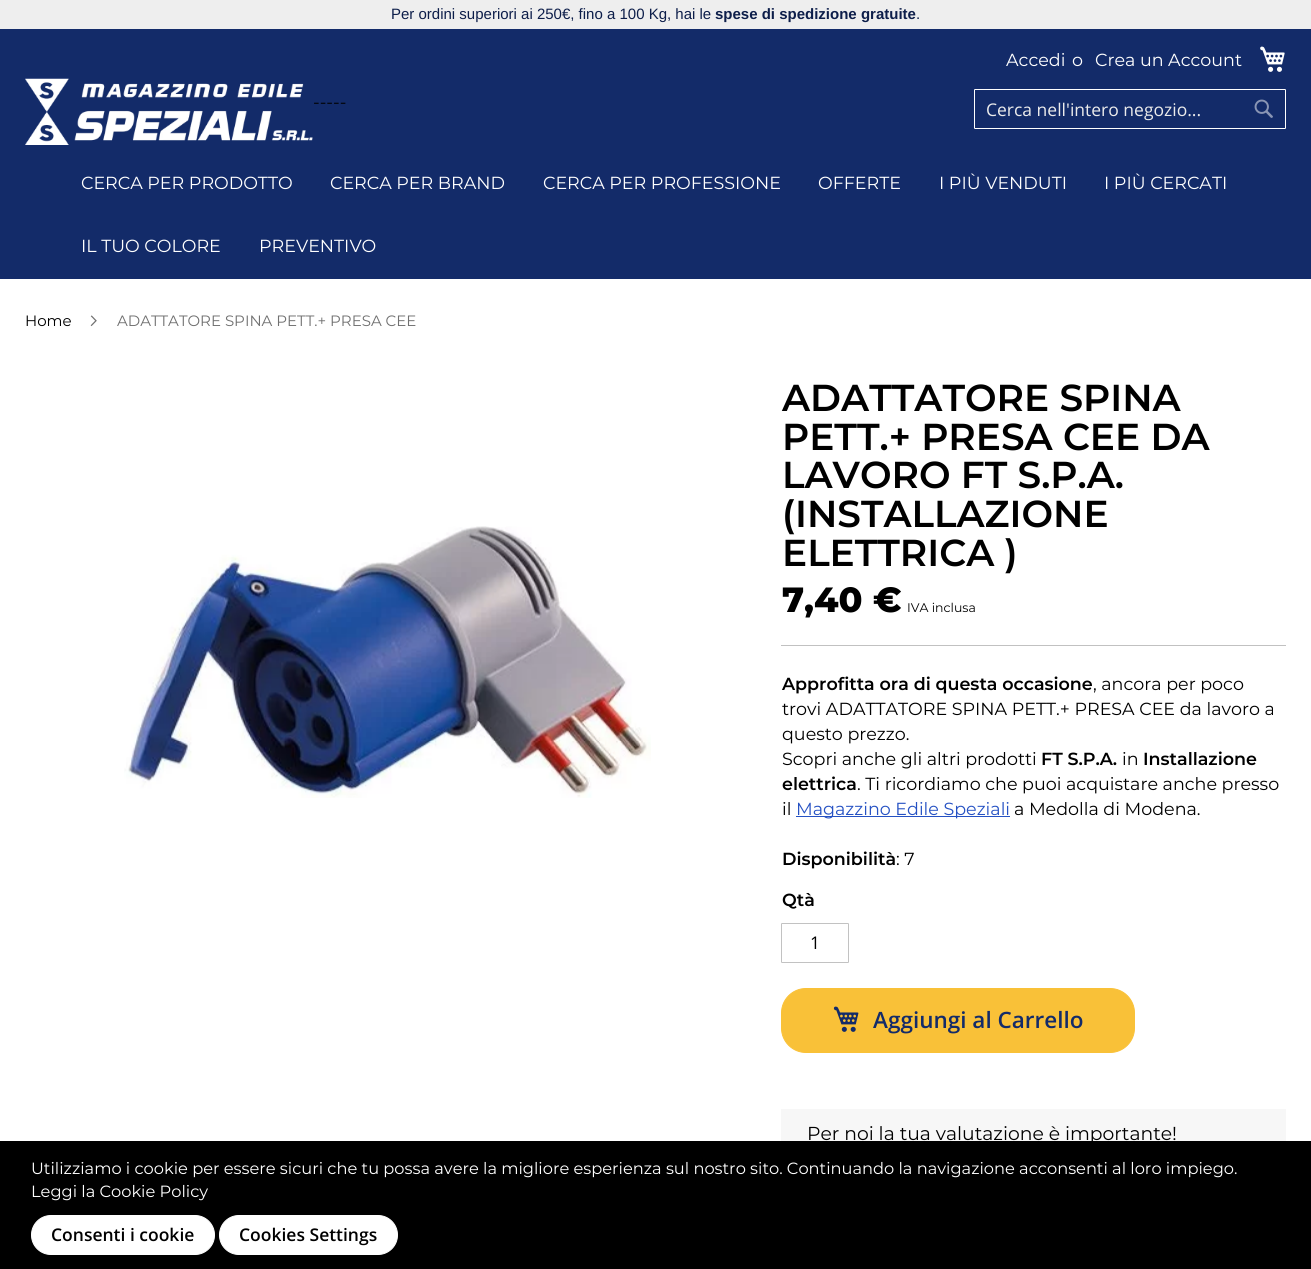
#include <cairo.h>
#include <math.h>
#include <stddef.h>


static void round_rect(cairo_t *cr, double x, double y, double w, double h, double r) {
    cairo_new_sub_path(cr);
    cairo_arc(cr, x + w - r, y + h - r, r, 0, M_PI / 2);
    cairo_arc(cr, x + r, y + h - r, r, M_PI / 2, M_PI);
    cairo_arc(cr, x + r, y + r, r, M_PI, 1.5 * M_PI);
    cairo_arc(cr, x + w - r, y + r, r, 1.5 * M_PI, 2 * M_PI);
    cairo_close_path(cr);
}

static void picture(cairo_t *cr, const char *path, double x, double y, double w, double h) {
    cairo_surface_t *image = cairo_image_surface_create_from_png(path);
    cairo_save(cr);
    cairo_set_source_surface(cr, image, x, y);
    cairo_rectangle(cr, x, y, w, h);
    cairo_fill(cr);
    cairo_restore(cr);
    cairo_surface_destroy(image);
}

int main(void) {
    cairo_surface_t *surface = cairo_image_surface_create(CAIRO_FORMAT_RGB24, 1311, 1269);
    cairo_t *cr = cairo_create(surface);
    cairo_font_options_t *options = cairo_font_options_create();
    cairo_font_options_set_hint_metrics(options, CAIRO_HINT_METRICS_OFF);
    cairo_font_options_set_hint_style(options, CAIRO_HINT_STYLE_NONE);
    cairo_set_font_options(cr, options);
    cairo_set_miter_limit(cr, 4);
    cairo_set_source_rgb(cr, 1, 1, 1);
    cairo_paint(cr);
    cairo_set_source_rgb(cr, 0.933, 0.933, 0.933);
    cairo_rectangle(cr, 0, 0, 1311, 29);
    cairo_fill(cr);
    cairo_select_font_face(cr, "Liberation Sans", CAIRO_FONT_SLANT_NORMAL, CAIRO_FONT_WEIGHT_NORMAL);
    cairo_set_font_size(cr, 15);
    cairo_set_source_rgb(cr, 0.051, 0.118, 0.29);
    cairo_move_to(cr, 391, 19);
    cairo_show_text(cr, "Per ordini superiori ai 250€, fino a 100 Kg, hai le");
    cairo_select_font_face(cr, "Liberation Sans", CAIRO_FONT_SLANT_NORMAL, CAIRO_FONT_WEIGHT_BOLD);
    cairo_move_to(cr, 715, 19);
    cairo_show_text(cr, "spese di spedizione gratuite");
    cairo_select_font_face(cr, "Liberation Sans", CAIRO_FONT_SLANT_NORMAL, CAIRO_FONT_WEIGHT_NORMAL);
    cairo_move_to(cr, 916, 19);
    cairo_show_text(cr, ".");
    cairo_set_source_rgb(cr, 0.075, 0.169, 0.412);
    cairo_rectangle(cr, 0, 29, 1311, 250);
    cairo_fill(cr);
    cairo_select_font_face(cr, "Montserrat", CAIRO_FONT_SLANT_NORMAL, CAIRO_FONT_WEIGHT_NORMAL);
    cairo_set_font_size(cr, 17.5);
    cairo_set_source_rgb(cr, 1, 1, 1);
    cairo_move_to(cr, 1006, 66);
    cairo_show_text(cr, "Accedi");
    cairo_move_to(cr, 1072, 66);
    cairo_show_text(cr, "o");
    cairo_move_to(cr, 1095, 66);
    cairo_show_text(cr, "Crea un Account");
    picture(cr, "img1.png", 1260, 46, 25, 26);
    picture(cr, "img2.png", 25, 78, 288, 67);
    cairo_set_source_rgb(cr, 0, 0, 0);
    cairo_move_to(cr, 313, 108);
    cairo_show_text(cr, "-----");
    round_rect(cr, 974.5, 89.5, 311, 39, 0.5);
    cairo_set_source_rgb(cr, 1, 1, 1);
    cairo_set_line_width(cr, 1);
    cairo_stroke(cr);
    cairo_select_font_face(cr, "Open Sans", CAIRO_FONT_SLANT_NORMAL, CAIRO_FONT_WEIGHT_NORMAL);
    cairo_set_source_rgb(cr, 0.918, 0.918, 0.918);
    cairo_move_to(cr, 986, 116);
    cairo_show_text(cr, "Cerca nell'intero negozio...");
    picture(cr, "img3.png", 1254, 99, 19, 19);
    cairo_select_font_face(cr, "Montserrat", CAIRO_FONT_SLANT_NORMAL, CAIRO_FONT_WEIGHT_NORMAL);
    cairo_set_source_rgb(cr, 1, 1, 1);
    cairo_move_to(cr, 81, 189);
    cairo_show_text(cr, "CERCA PER PRODOTTO");
    cairo_move_to(cr, 330, 189);
    cairo_show_text(cr, "CERCA PER BRAND");
    cairo_move_to(cr, 543, 189);
    cairo_show_text(cr, "CERCA PER PROFESSIONE");
    cairo_move_to(cr, 818, 189);
    cairo_show_text(cr, "OFFERTE");
    cairo_move_to(cr, 939, 189);
    cairo_show_text(cr, "I PIÙ VENDUTI");
    cairo_move_to(cr, 1104, 189);
    cairo_show_text(cr, "I PIÙ CERCATI");
    cairo_move_to(cr, 81, 252);
    cairo_show_text(cr, "IL TUO COLORE");
    cairo_move_to(cr, 259, 252);
    cairo_show_text(cr, "PREVENTIVO");
    cairo_set_font_size(cr, 15);
    cairo_set_source_rgb(cr, 0, 0, 0);
    cairo_move_to(cr, 25, 326);
    cairo_show_text(cr, "Home");
    picture(cr, "img4.png", 90, 315, 7, 12);
    cairo_set_source_rgb(cr, 0.439, 0.439, 0.439);
    cairo_move_to(cr, 117, 326);
    cairo_show_text(cr, "ADATTATORE SPINA PETT.+ PRESA CEE");
    picture(cr, "img5.png", 124, 526, 527, 272);
    cairo_select_font_face(cr, "Montserrat SemiBold", CAIRO_FONT_SLANT_NORMAL, CAIRO_FONT_WEIGHT_NORMAL);
    cairo_set_font_size(cr, 37.5);
    cairo_set_source_rgb(cr, 0, 0, 0);
    cairo_move_to(cr, 782, 411);
    cairo_show_text(cr, "ADATTATORE SPINA");
    cairo_move_to(cr, 782, 450);
    cairo_show_text(cr, "PETT.+ PRESA CEE DA");
    cairo_move_to(cr, 782, 488);
    cairo_show_text(cr, "LAVORO FT S.P.A.");
    cairo_move_to(cr, 782, 527);
    cairo_show_text(cr, "(INSTALLAZIONE");
    cairo_move_to(cr, 782, 566);
    cairo_show_text(cr, "ELETTRICA )");
    cairo_set_source_rgb(cr, 0.757, 0.757, 0.757);
    cairo_rectangle(cr, 781, 645, 505, 1);
    cairo_fill(cr);
    cairo_select_font_face(cr, "Montserrat ExtraBold", CAIRO_FONT_SLANT_NORMAL, CAIRO_FONT_WEIGHT_NORMAL);
    cairo_set_font_size(cr, 35);
    cairo_set_source_rgb(cr, 0, 0, 0);
    cairo_move_to(cr, 782, 612);
    cairo_show_text(cr, "7,40 €");
    cairo_select_font_face(cr, "Montserrat", CAIRO_FONT_SLANT_NORMAL, CAIRO_FONT_WEIGHT_NORMAL);
    cairo_set_font_size(cr, 12.5);
    cairo_move_to(cr, 907, 612);
    cairo_show_text(cr, "IVA inclusa");
    cairo_select_font_face(cr, "Montserrat SemiBold", CAIRO_FONT_SLANT_NORMAL, CAIRO_FONT_WEIGHT_NORMAL);
    cairo_set_font_size(cr, 17.5);
    cairo_move_to(cr, 782, 690);
    cairo_show_text(cr, "Approfitta ora di questa occasione");
    cairo_select_font_face(cr, "Montserrat", CAIRO_FONT_SLANT_NORMAL, CAIRO_FONT_WEIGHT_NORMAL);
    cairo_move_to(cr, 1093, 690);
    cairo_show_text(cr, ", ancora per poco");
    cairo_move_to(cr, 782, 715);
    cairo_show_text(cr, "trovi ADATTATORE SPINA PETT.+ PRESA CEE da lavoro a");
    cairo_move_to(cr, 782, 740);
    cairo_show_text(cr, "questo prezzo.");
    cairo_move_to(cr, 782, 765);
    cairo_show_text(cr, "Scopri anche gli altri prodotti");
    cairo_select_font_face(cr, "Montserrat SemiBold", CAIRO_FONT_SLANT_NORMAL, CAIRO_FONT_WEIGHT_NORMAL);
    cairo_move_to(cr, 1041, 765);
    cairo_show_text(cr, "FT S.P.A.");
    cairo_select_font_face(cr, "Montserrat", CAIRO_FONT_SLANT_NORMAL, CAIRO_FONT_WEIGHT_NORMAL);
    cairo_move_to(cr, 1122, 765);
    cairo_show_text(cr, "in");
    cairo_select_font_face(cr, "Montserrat SemiBold", CAIRO_FONT_SLANT_NORMAL, CAIRO_FONT_WEIGHT_NORMAL);
    cairo_move_to(cr, 1143, 765);
    cairo_show_text(cr, "Installazione");
    cairo_move_to(cr, 782, 790);
    cairo_show_text(cr, "elettrica");
    cairo_select_font_face(cr, "Montserrat", CAIRO_FONT_SLANT_NORMAL, CAIRO_FONT_WEIGHT_NORMAL);
    cairo_move_to(cr, 857, 790);
    cairo_show_text(cr, ". Ti ricordiamo che puoi acquistare anche presso");
    cairo_move_to(cr, 782, 815);
    cairo_show_text(cr, "il");
    cairo_set_source_rgb(cr, 0.145, 0.318, 0.765);
    cairo_rectangle(cr, 796, 816, 214, 1);
    cairo_fill(cr);
    cairo_move_to(cr, 796, 815);
    cairo_show_text(cr, "Magazzino Edile Speziali");
    cairo_set_source_rgb(cr, 0, 0, 0);
    cairo_move_to(cr, 1014, 815);
    cairo_show_text(cr, "a Medolla di Modena.");
    cairo_select_font_face(cr, "Montserrat SemiBold", CAIRO_FONT_SLANT_NORMAL, CAIRO_FONT_WEIGHT_NORMAL);
    cairo_move_to(cr, 782, 865);
    cairo_show_text(cr, "Disponibilità");
    cairo_select_font_face(cr, "Montserrat", CAIRO_FONT_SLANT_NORMAL, CAIRO_FONT_WEIGHT_NORMAL);
    cairo_move_to(cr, 896, 865);
    cairo_show_text(cr, ": 7");
    cairo_select_font_face(cr, "Montserrat SemiBold", CAIRO_FONT_SLANT_NORMAL, CAIRO_FONT_WEIGHT_NORMAL);
    cairo_move_to(cr, 782, 906);
    cairo_show_text(cr, "Qtà");
    round_rect(cr, 781.5, 923.5, 67, 39, 0.5);
    cairo_set_source_rgb(cr, 0.761, 0.761, 0.761);
    cairo_stroke(cr);
    cairo_select_font_face(cr, "Open Sans", CAIRO_FONT_SLANT_NORMAL, CAIRO_FONT_WEIGHT_NORMAL);
    cairo_set_source_rgb(cr, 0, 0, 0);
    cairo_move_to(cr, 810, 949);
    cairo_show_text(cr, "1");
    cairo_set_source_rgb(cr, 0.973, 0.757, 0.22);
    round_rect(cr, 781.5, 988.5, 353, 64, 24.5);
    cairo_fill_preserve(cr);
    cairo_stroke(cr);
    picture(cr, "img6.png", 833, 1006, 26, 26);
    cairo_select_font_face(cr, "Open Sans SemiBold", CAIRO_FONT_SLANT_NORMAL, CAIRO_FONT_WEIGHT_NORMAL);
    cairo_set_font_size(cr, 22.5);
    cairo_set_source_rgb(cr, 0.075, 0.169, 0.412);
    cairo_move_to(cr, 873, 1028);
    cairo_show_text(cr, "Aggiungi al Carrello");
    cairo_set_source_rgb(cr, 0.965, 0.965, 0.965);
    cairo_rectangle(cr, 781, 1109, 505, 32);
    cairo_fill(cr);
    cairo_select_font_face(cr, "Montserrat", CAIRO_FONT_SLANT_NORMAL, CAIRO_FONT_WEIGHT_NORMAL);
    cairo_set_font_size(cr, 18.75);
    cairo_set_source_rgb(cr, 0, 0, 0);
    cairo_move_to(cr, 807, 1140);
    cairo_show_text(cr, "Per noi la tua valutazione è importante!");
    cairo_rectangle(cr, 0, 1141, 1311, 128);
    cairo_fill(cr);
    cairo_set_font_size(cr, 16.25);
    cairo_set_source_rgb(cr, 1, 1, 1);
    cairo_move_to(cr, 31, 1174);
    cairo_show_text(cr, "Utilizziamo i cookie per essere sicuri che tu possa avere la migliore esperienza sul nostro sito. Continuando la navigazione acconsenti al loro impiego.");
    cairo_move_to(cr, 31, 1197);
    cairo_show_text(cr, "Leggi la Cookie Policy");
    round_rect(cr, 31.5, 1215.5, 183, 39, 19.5);
    cairo_fill_preserve(cr);
    cairo_stroke(cr);
    cairo_select_font_face(cr, "Open Sans SemiBold", CAIRO_FONT_SLANT_NORMAL, CAIRO_FONT_WEIGHT_NORMAL);
    cairo_set_font_size(cr, 17.5);
    cairo_set_source_rgb(cr, 0, 0, 0);
    cairo_move_to(cr, 51, 1241);
    cairo_show_text(cr, "Consenti i cookie");
    cairo_set_source_rgb(cr, 1, 1, 1);
    round_rect(cr, 219.5, 1215.5, 178, 39, 19.5);
    cairo_fill_preserve(cr);
    cairo_stroke(cr);
    cairo_set_source_rgb(cr, 0, 0, 0);
    cairo_move_to(cr, 239, 1241);
    cairo_show_text(cr, "Cookies Settings");
    cairo_surface_write_to_png(surface, "page.png");
    cairo_font_options_destroy(options);
    cairo_destroy(cr);
    cairo_surface_destroy(surface);
    return 0;
}
